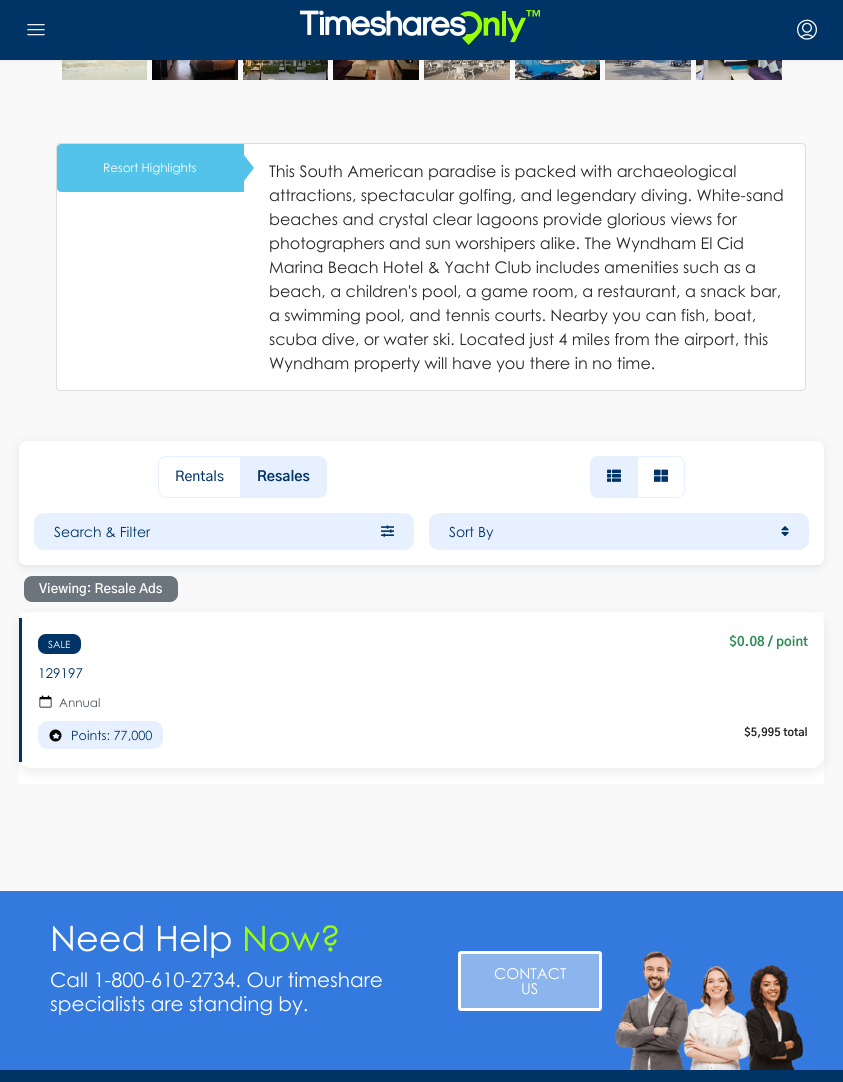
#include <cairo.h>
#include <math.h>
#include <stddef.h>


static void round_rect(cairo_t *cr, double x, double y, double w, double h, double r) {
    cairo_new_sub_path(cr);
    cairo_arc(cr, x + w - r, y + h - r, r, 0, M_PI / 2);
    cairo_arc(cr, x + r, y + h - r, r, M_PI / 2, M_PI);
    cairo_arc(cr, x + r, y + r, r, M_PI, 1.5 * M_PI);
    cairo_arc(cr, x + w - r, y + r, r, 1.5 * M_PI, 2 * M_PI);
    cairo_close_path(cr);
}

static void shadow(cairo_t *cr, double x, double y, double w, double h, double r, double blur, double alpha) {
    cairo_push_group_with_content(cr, CAIRO_CONTENT_ALPHA);
    cairo_set_operator(cr, CAIRO_OPERATOR_SOURCE);
    for (int i = 15; i >= -15 && fmin(w, h) + blur * i / 3 > 0; i -= 2) {
        double e = blur * i / 6;
        cairo_set_source_rgba(cr, 0, 0, 0, alpha * erfc((i - 1) / 8.5) / 2);
        round_rect(cr, x - e, y - e, w + 2 * e, h + 2 * e, fmax(0, fmin(r + e + blur * .6, fmin(w, h) / 2 + e)));
        cairo_fill(cr);
    }
    cairo_pattern_t *soft = cairo_pop_group(cr);
    cairo_mask(cr, soft);
    cairo_pattern_destroy(soft);
}

static void picture(cairo_t *cr, const char *path, double x, double y, double w, double h) {
    cairo_surface_t *image = cairo_image_surface_create_from_png(path);
    cairo_save(cr);
    cairo_set_source_surface(cr, image, x, y);
    cairo_rectangle(cr, x, y, w, h);
    cairo_fill(cr);
    cairo_restore(cr);
    cairo_surface_destroy(image);
}

int main(void) {
    cairo_surface_t *surface = cairo_image_surface_create(CAIRO_FORMAT_RGB24, 843, 1082);
    cairo_t *cr = cairo_create(surface);
    cairo_font_options_t *options = cairo_font_options_create();
    cairo_font_options_set_hint_metrics(options, CAIRO_HINT_METRICS_OFF);
    cairo_font_options_set_hint_style(options, CAIRO_HINT_STYLE_NONE);
    cairo_set_font_options(cr, options);
    cairo_set_miter_limit(cr, 4);
    cairo_set_source_rgb(cr, 0.973, 0.973, 0.973);
    cairo_paint(cr);
    picture(cr, "img4.png", 62, 60, 85, 20);
    picture(cr, "img5.png", 152, 60, 86, 20);
    picture(cr, "img6.png", 243, 60, 85, 20);
    picture(cr, "img7.png", 333, 60, 86, 20);
    picture(cr, "img8.png", 424, 60, 86, 20);
    picture(cr, "img9.png", 515, 60, 85, 20);
    picture(cr, "img10.png", 605, 60, 86, 20);
    picture(cr, "img11.png", 696, 60, 86, 20);
    cairo_set_source_rgb(cr, 0, 0, 0);
    shadow(cr, 0, 0, 843, 60, 0, 2.5, 0.1);
    cairo_set_source_rgb(cr, 0, 0.204, 0.4);
    cairo_rectangle(cr, 0, 0, 843, 60);
    cairo_fill(cr);
    picture(cr, "img1.png", 27, 24, 18, 12);
    picture(cr, "img2.png", 300, 10, 240, 35);
    picture(cr, "img3.png", 797, 19, 20, 21);
    cairo_set_source_rgb(cr, 1, 1, 1);
    round_rect(cr, 56.5, 143.5, 749, 247, 3.5);
    cairo_fill_preserve(cr);
    cairo_set_source_rgb(cr, 0.871, 0.871, 0.871);
    cairo_set_line_width(cr, 1);
    cairo_stroke(cr);
    cairo_set_source_rgb(cr, 0.329, 0.765, 0.914);
    cairo_new_path(cr);
    cairo_move_to(cr, 61, 144);
    cairo_line_to(cr, 244, 144);
    cairo_line_to(cr, 244, 192);
    cairo_line_to(cr, 61, 192);
    cairo_curve_to(cr, 59, 192, 57, 190, 57, 188);
    cairo_line_to(cr, 57, 148);
    cairo_curve_to(cr, 57, 146, 59, 144, 61, 144);
    cairo_close_path(cr);
    cairo_fill(cr);
    cairo_select_font_face(cr, "Century Gothic", CAIRO_FONT_SLANT_NORMAL, CAIRO_FONT_WEIGHT_NORMAL);
    cairo_set_font_size(cr, 12);
    cairo_set_source_rgb(cr, 1, 1, 1);
    cairo_move_to(cr, 103, 172);
    cairo_show_text(cr, "Resort Highlights");
    cairo_set_source_rgb(cr, 0.329, 0.765, 0.914);
    cairo_new_path(cr);
    cairo_move_to(cr, 244, 181);
    cairo_line_to(cr, 244, 155);
    cairo_line_to(cr, 254, 168);
    cairo_close_path(cr);
    cairo_fill(cr);
    cairo_set_font_size(cr, 16);
    cairo_set_source_rgb(cr, 0.157, 0.157, 0.157);
    cairo_move_to(cr, 269, 177);
    cairo_show_text(cr, "This South American paradise is packed with archaeological");
    cairo_move_to(cr, 269, 201);
    cairo_show_text(cr, "attractions, spectacular golfing, and legendary diving. White-sand");
    cairo_move_to(cr, 269, 225);
    cairo_show_text(cr, "beaches and crystal clear lagoons provide glorious views for");
    cairo_move_to(cr, 269, 249);
    cairo_show_text(cr, "photographers and sun worshipers alike. The Wyndham El Cid");
    cairo_move_to(cr, 269, 273);
    cairo_show_text(cr, "Marina Beach Hotel & Yacht Club includes amenities such as a");
    cairo_move_to(cr, 269, 297);
    cairo_show_text(cr, "beach, a children's pool, a game room, a restaurant, a snack bar,");
    cairo_move_to(cr, 269, 321);
    cairo_show_text(cr, "a swimming pool, and tennis courts. Nearby you can fish, boat,");
    cairo_move_to(cr, 269, 345);
    cairo_show_text(cr, "scuba dive, or water ski. Located just 4 miles from the airport, this");
    cairo_move_to(cr, 269, 369);
    cairo_show_text(cr, "Wyndham property will have you there in no time.");
    cairo_set_source_rgb(cr, 0, 0.204, 0.4);
    shadow(cr, 19, 443, 805, 125, 8, 5, 0.1);
    cairo_set_source_rgb(cr, 1, 1, 1);
    round_rect(cr, 19, 441, 805, 125, 8);
    cairo_fill(cr);
    cairo_set_source_rgba(cr, 0, 0.204, 0.4, 0.1);
    cairo_rectangle(cr, 23, 565, 797, 1);
    cairo_fill(cr);
    cairo_new_path(cr);
    cairo_move_to(cr, 166, 456.5);
    cairo_line_to(cr, 240.5, 456.5);
    cairo_line_to(cr, 240.5, 497.5);
    cairo_line_to(cr, 166, 497.5);
    cairo_curve_to(cr, 162, 497.5, 158.5, 494, 158.5, 490);
    cairo_line_to(cr, 158.5, 464);
    cairo_curve_to(cr, 158.5, 460, 162, 456.5, 166, 456.5);
    cairo_close_path(cr);
    cairo_set_source_rgb(cr, 0.906, 0.941, 1);
    cairo_stroke(cr);
    cairo_select_font_face(cr, "Gothic A1 Medium", CAIRO_FONT_SLANT_NORMAL, CAIRO_FONT_WEIGHT_NORMAL);
    cairo_set_font_size(cr, 14);
    cairo_set_source_rgb(cr, 0, 0.204, 0.4);
    cairo_move_to(cr, 175, 481);
    cairo_show_text(cr, "Rentals");
    cairo_set_source_rgb(cr, 0.906, 0.941, 1);
    cairo_new_path(cr);
    cairo_move_to(cr, 240.5, 456.5);
    cairo_line_to(cr, 319, 456.5);
    cairo_curve_to(cr, 323, 456.5, 326.5, 460, 326.5, 464);
    cairo_line_to(cr, 326.5, 490);
    cairo_curve_to(cr, 326.5, 494, 323, 497.5, 319, 497.5);
    cairo_line_to(cr, 240.5, 497.5);
    cairo_close_path(cr);
    cairo_fill_preserve(cr);
    cairo_stroke(cr);
    cairo_select_font_face(cr, "Gothic A1", CAIRO_FONT_SLANT_NORMAL, CAIRO_FONT_WEIGHT_BOLD);
    cairo_set_source_rgb(cr, 0, 0.204, 0.4);
    cairo_move_to(cr, 257, 481);
    cairo_show_text(cr, "Resales");
    cairo_set_source_rgb(cr, 0.906, 0.941, 1);
    cairo_new_path(cr);
    cairo_move_to(cr, 598, 456.5);
    cairo_line_to(cr, 637.5, 456.5);
    cairo_line_to(cr, 637.5, 497.5);
    cairo_line_to(cr, 598, 497.5);
    cairo_curve_to(cr, 594, 497.5, 590.5, 494, 590.5, 490);
    cairo_line_to(cr, 590.5, 464);
    cairo_curve_to(cr, 590.5, 460, 594, 456.5, 598, 456.5);
    cairo_close_path(cr);
    cairo_fill_preserve(cr);
    cairo_stroke(cr);
    picture(cr, "img12.png", 607, 469, 14, 13);
    cairo_new_path(cr);
    cairo_move_to(cr, 637.5, 456.5);
    cairo_line_to(cr, 677, 456.5);
    cairo_curve_to(cr, 681, 456.5, 684.5, 460, 684.5, 464);
    cairo_line_to(cr, 684.5, 490);
    cairo_curve_to(cr, 684.5, 494, 681, 497.5, 677, 497.5);
    cairo_line_to(cr, 637.5, 497.5);
    cairo_close_path(cr);
    cairo_stroke(cr);
    picture(cr, "img13.png", 654, 469, 14, 13);
    round_rect(cr, 34, 513, 380, 37, 10);
    cairo_fill(cr);
    cairo_select_font_face(cr, "Century Gothic", CAIRO_FONT_SLANT_NORMAL, CAIRO_FONT_WEIGHT_NORMAL);
    cairo_set_source_rgb(cr, 0, 0.204, 0.4);
    cairo_move_to(cr, 54, 537);
    cairo_show_text(cr, "Search & Filter");
    picture(cr, "img14.png", 381, 525, 13, 12);
    cairo_set_source_rgb(cr, 0.906, 0.941, 1);
    round_rect(cr, 429, 513, 380, 37, 10);
    cairo_fill(cr);
    cairo_set_source_rgb(cr, 0, 0.204, 0.4);
    cairo_move_to(cr, 449, 537);
    cairo_show_text(cr, "Sort By");
    picture(cr, "img15.png", 781, 526, 8, 11);
    cairo_set_source_rgb(cr, 0.424, 0.459, 0.49);
    round_rect(cr, 24, 576, 154, 26, 8);
    cairo_fill(cr);
    cairo_select_font_face(cr, "Gothic A1 SemiBold", CAIRO_FONT_SLANT_NORMAL, CAIRO_FONT_WEIGHT_NORMAL);
    cairo_set_font_size(cr, 13);
    cairo_set_source_rgb(cr, 1, 1, 1);
    cairo_move_to(cr, 39, 593);
    cairo_show_text(cr, "Viewing: Resale Ads");
    cairo_rectangle(cr, 19, 612, 805, 172);
    cairo_fill(cr);
    cairo_set_source_rgb(cr, 0, 0, 0);
    shadow(cr, 19, 616, 805, 156, 12, 6, 0.08);
    cairo_set_source_rgb(cr, 1, 1, 1);
    round_rect(cr, 19, 612, 805, 156, 12);
    cairo_fill(cr);
    cairo_set_source_rgb(cr, 0, 0.204, 0.4);
    cairo_rectangle(cr, 19, 618, 3, 144);
    cairo_fill(cr);
    round_rect(cr, 38, 634, 43, 20, 8);
    cairo_fill(cr);
    cairo_select_font_face(cr, "Century Gothic", CAIRO_FONT_SLANT_NORMAL, CAIRO_FONT_WEIGHT_NORMAL);
    cairo_set_font_size(cr, 10);
    cairo_set_source_rgb(cr, 1, 1, 1);
    cairo_move_to(cr, 48, 648);
    cairo_show_text(cr, "SALE");
    cairo_select_font_face(cr, "Gothic A1", CAIRO_FONT_SLANT_NORMAL, CAIRO_FONT_WEIGHT_BOLD);
    cairo_set_font_size(cr, 13);
    cairo_set_source_rgb(cr, 0.176, 0.549, 0.337);
    cairo_move_to(cr, 729, 646);
    cairo_show_text(cr, "$0.08 / point");
    cairo_select_font_face(cr, "Century Gothic", CAIRO_FONT_SLANT_NORMAL, CAIRO_FONT_WEIGHT_NORMAL);
    cairo_set_font_size(cr, 13.5);
    cairo_set_source_rgb(cr, 0, 0.204, 0.4);
    cairo_move_to(cr, 38, 678);
    cairo_show_text(cr, "129197");
    picture(cr, "img16.png", 39, 695, 13, 13);
    cairo_set_font_size(cr, 12);
    cairo_set_source_rgb(cr, 0.294, 0.333, 0.388);
    cairo_move_to(cr, 59, 707);
    cairo_show_text(cr, "Annual");
    cairo_set_source_rgb(cr, 0.906, 0.941, 1);
    round_rect(cr, 38, 721, 125, 28, 10);
    cairo_fill(cr);
    picture(cr, "img17.png", 49, 729, 13, 13);
    cairo_set_font_size(cr, 12.75);
    cairo_set_source_rgb(cr, 0, 0.204, 0.4);
    cairo_move_to(cr, 71, 740);
    cairo_show_text(cr, "Points: 77,000");
    cairo_select_font_face(cr, "Gothic A1", CAIRO_FONT_SLANT_NORMAL, CAIRO_FONT_WEIGHT_BOLD);
    cairo_set_font_size(cr, 11);
    cairo_set_source_rgb(cr, 0.133, 0.133, 0.133);
    cairo_move_to(cr, 744, 736);
    cairo_show_text(cr, "$5,995 total");
    cairo_set_source_rgb(cr, 0.204, 0.478, 0.871);
    cairo_rectangle(cr, 0, 891, 843, 179);
    cairo_fill(cr);
    cairo_select_font_face(cr, "Century Gothic", CAIRO_FONT_SLANT_NORMAL, CAIRO_FONT_WEIGHT_NORMAL);
    cairo_set_font_size(cr, 35);
    cairo_set_source_rgb(cr, 1, 1, 1);
    cairo_move_to(cr, 50, 951);
    cairo_show_text(cr, "Need Help");
    cairo_set_source_rgb(cr, 0.612, 1, 0.031);
    cairo_move_to(cr, 242, 951);
    cairo_show_text(cr, "Now?");
    cairo_set_font_size(cr, 20);
    cairo_set_source_rgb(cr, 1, 1, 1);
    cairo_move_to(cr, 50, 987);
    cairo_show_text(cr, "Call 1-800-610-2734. Our timeshare");
    cairo_move_to(cr, 50, 1011);
    cairo_show_text(cr, "specialists are standing by.");
    cairo_set_source_rgb(cr, 0.553, 0.71, 0.929);
    round_rect(cr, 459.5, 952.5, 141, 57, 1.5);
    cairo_fill_preserve(cr);
    cairo_set_source_rgb(cr, 1, 1, 1);
    cairo_set_line_width(cr, 3);
    cairo_stroke(cr);
    cairo_set_font_size(cr, 15);
    cairo_move_to(cr, 494, 979);
    cairo_show_text(cr, "CONTACT");
    cairo_move_to(cr, 521, 994);
    cairo_show_text(cr, "US");
    picture(cr, "img18.png", 615, 951, 188, 119);
    cairo_set_source_rgb(cr, 0, 0.204, 0.4);
    cairo_rectangle(cr, 0, 1070, 843, 12);
    cairo_fill(cr);
    cairo_surface_write_to_png(surface, "page.png");
    cairo_font_options_destroy(options);
    cairo_destroy(cr);
    cairo_surface_destroy(surface);
    return 0;
}
